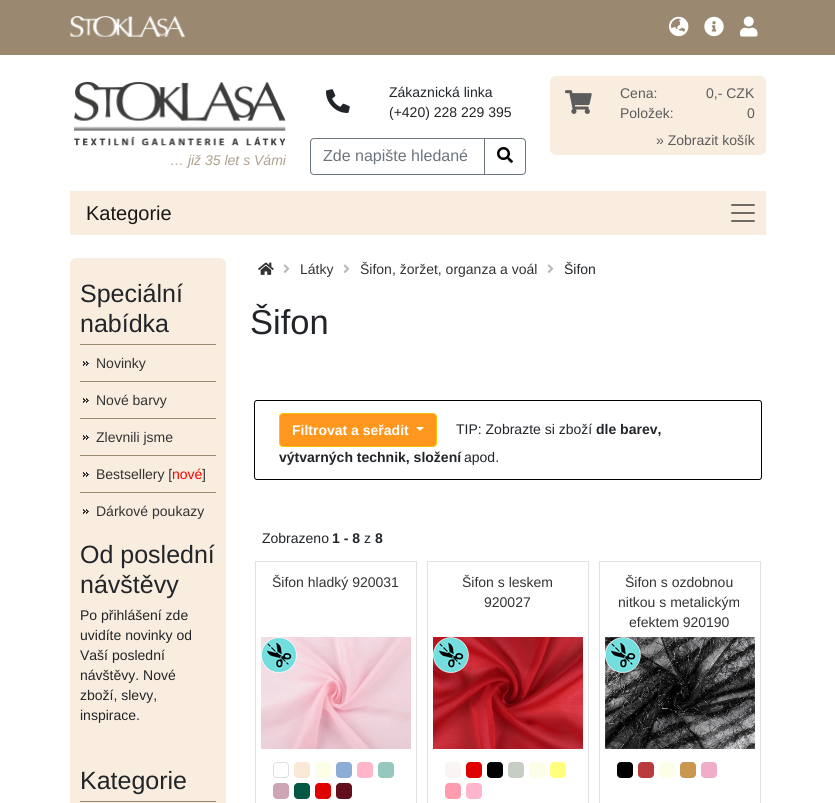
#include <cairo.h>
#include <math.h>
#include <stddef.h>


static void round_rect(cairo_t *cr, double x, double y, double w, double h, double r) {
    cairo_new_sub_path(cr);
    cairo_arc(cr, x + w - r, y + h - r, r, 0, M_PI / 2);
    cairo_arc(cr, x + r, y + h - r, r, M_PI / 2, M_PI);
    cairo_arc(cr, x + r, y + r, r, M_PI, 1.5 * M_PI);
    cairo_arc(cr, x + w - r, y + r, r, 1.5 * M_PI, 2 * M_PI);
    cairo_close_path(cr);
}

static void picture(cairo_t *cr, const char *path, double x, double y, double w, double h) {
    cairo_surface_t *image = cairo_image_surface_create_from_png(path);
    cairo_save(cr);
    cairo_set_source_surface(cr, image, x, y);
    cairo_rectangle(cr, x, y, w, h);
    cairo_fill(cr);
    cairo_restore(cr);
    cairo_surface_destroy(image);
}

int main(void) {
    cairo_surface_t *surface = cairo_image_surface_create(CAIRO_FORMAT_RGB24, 835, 803);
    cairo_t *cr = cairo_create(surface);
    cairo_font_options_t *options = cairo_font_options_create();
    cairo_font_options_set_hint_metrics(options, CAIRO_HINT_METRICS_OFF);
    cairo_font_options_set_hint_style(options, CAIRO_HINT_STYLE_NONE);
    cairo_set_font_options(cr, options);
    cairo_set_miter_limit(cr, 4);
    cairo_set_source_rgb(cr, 1, 1, 1);
    cairo_paint(cr);
    cairo_set_source_rgb(cr, 0.604, 0.533, 0.439);
    cairo_rectangle(cr, 0, 0, 835, 55);
    cairo_fill(cr);
    picture(cr, "img1.png", 70, 16, 115, 21);
    picture(cr, "img2.png", 669, 16, 20, 21);
    picture(cr, "img3.png", 704, 16, 20, 21);
    picture(cr, "img4.png", 740, 16, 18, 21);
    picture(cr, "img5.png", 326, 89, 24, 24);
    cairo_select_font_face(cr, "Liberation Sans", CAIRO_FONT_SLANT_NORMAL, CAIRO_FONT_WEIGHT_NORMAL);
    cairo_set_font_size(cr, 14);
    cairo_set_source_rgb(cr, 0.129, 0.145, 0.161);
    cairo_move_to(cr, 389, 97);
    cairo_show_text(cr, "Zákaznická linka");
    cairo_move_to(cr, 389, 117);
    cairo_show_text(cr, "(+420) 228 229 395");
    cairo_new_path(cr);
    cairo_move_to(cr, 314, 138.5);
    cairo_line_to(cr, 484.5, 138.5);
    cairo_line_to(cr, 484.5, 174.5);
    cairo_line_to(cr, 314, 174.5);
    cairo_curve_to(cr, 312, 174.5, 310.5, 173, 310.5, 171);
    cairo_line_to(cr, 310.5, 142);
    cairo_curve_to(cr, 310.5, 140, 312, 138.5, 314, 138.5);
    cairo_close_path(cr);
    cairo_set_source_rgb(cr, 0.424, 0.459, 0.49);
    cairo_set_line_width(cr, 1);
    cairo_stroke(cr);
    cairo_set_font_size(cr, 16);
    cairo_move_to(cr, 323, 161);
    cairo_show_text(cr, "Zde napište hledané");
    cairo_set_source_rgb(cr, 1, 1, 1);
    cairo_new_path(cr);
    cairo_move_to(cr, 484.5, 138.5);
    cairo_line_to(cr, 522, 138.5);
    cairo_curve_to(cr, 524, 138.5, 525.5, 140, 525.5, 142);
    cairo_line_to(cr, 525.5, 171);
    cairo_curve_to(cr, 525.5, 173, 524, 174.5, 522, 174.5);
    cairo_line_to(cr, 484.5, 174.5);
    cairo_close_path(cr);
    cairo_fill_preserve(cr);
    cairo_set_source_rgb(cr, 0.424, 0.459, 0.49);
    cairo_stroke(cr);
    picture(cr, "img6.png", 497, 147, 16, 16);
    cairo_set_source_rgb(cr, 0.969, 0.929, 0.871);
    round_rect(cr, 550, 76, 216, 79, 6);
    cairo_fill(cr);
    picture(cr, "img7.png", 565, 90, 27, 24);
    cairo_set_font_size(cr, 14);
    cairo_set_source_rgb(cr, 0.361, 0.361, 0.361);
    cairo_move_to(cr, 620, 98);
    cairo_show_text(cr, "Cena:");
    cairo_move_to(cr, 620, 118);
    cairo_show_text(cr, "Položek:");
    cairo_move_to(cr, 706, 98);
    cairo_show_text(cr, "0,- CZK");
    cairo_move_to(cr, 747, 118);
    cairo_show_text(cr, "0");
    cairo_move_to(cr, 656, 145);
    cairo_show_text(cr, "» Zobrazit košík");
    picture(cr, "img8.png", 74, 82, 212, 64);
    cairo_select_font_face(cr, "Liberation Sans", CAIRO_FONT_SLANT_ITALIC, CAIRO_FONT_WEIGHT_NORMAL);
    cairo_set_source_rgb(cr, 0.682, 0.627, 0.553);
    cairo_move_to(cr, 170, 165);
    cairo_show_text(cr, "… již 35 let s Vámi");
    cairo_set_source_rgb(cr, 0.969, 0.929, 0.871);
    cairo_rectangle(cr, 70, 191, 696, 44);
    cairo_fill(cr);
    cairo_select_font_face(cr, "Liberation Sans", CAIRO_FONT_SLANT_NORMAL, CAIRO_FONT_WEIGHT_NORMAL);
    cairo_set_font_size(cr, 20);
    cairo_set_source_rgb(cr, 0.098, 0.094, 0.086);
    cairo_move_to(cr, 86, 220);
    cairo_show_text(cr, "Kategorie");
    picture(cr, "img9.png", 731, 204, 24, 18);
    cairo_set_source_rgb(cr, 0.969, 0.929, 0.871);
    round_rect(cr, 70, 258, 156, 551, 6);
    cairo_fill(cr);
    cairo_set_font_size(cr, 25);
    cairo_set_source_rgb(cr, 0.129, 0.145, 0.161);
    cairo_move_to(cr, 80, 302);
    cairo_show_text(cr, "Speciální");
    cairo_move_to(cr, 80, 332);
    cairo_show_text(cr, "nabídka");
    picture(cr, "img10.png", 83, 361, 6, 5);
    cairo_set_source_rgb(cr, 0.604, 0.533, 0.439);
    cairo_rectangle(cr, 80, 344, 136, 1);
    cairo_fill(cr);
    cairo_set_font_size(cr, 14);
    cairo_set_source_rgb(cr, 0.2, 0.2, 0.2);
    cairo_move_to(cr, 96, 368);
    cairo_show_text(cr, "Novinky");
    picture(cr, "img10.png", 83, 398, 6, 5);
    cairo_set_source_rgb(cr, 0.604, 0.533, 0.439);
    cairo_rectangle(cr, 80, 381, 136, 1);
    cairo_fill(cr);
    cairo_set_source_rgb(cr, 0.2, 0.2, 0.2);
    cairo_move_to(cr, 96, 405);
    cairo_show_text(cr, "Nové barvy");
    picture(cr, "img10.png", 83, 435, 6, 5);
    cairo_set_source_rgb(cr, 0.604, 0.533, 0.439);
    cairo_rectangle(cr, 80, 418, 136, 1);
    cairo_fill(cr);
    cairo_set_source_rgb(cr, 0.2, 0.2, 0.2);
    cairo_move_to(cr, 96, 442);
    cairo_show_text(cr, "Zlevnili jsme");
    picture(cr, "img10.png", 83, 472, 6, 5);
    cairo_set_source_rgb(cr, 0.604, 0.533, 0.439);
    cairo_rectangle(cr, 80, 455, 136, 1);
    cairo_fill(cr);
    cairo_set_source_rgb(cr, 0.2, 0.2, 0.2);
    cairo_move_to(cr, 96, 479);
    cairo_show_text(cr, "Bestsellery [");
    cairo_set_source_rgb(cr, 1, 0, 0);
    cairo_move_to(cr, 172, 479);
    cairo_show_text(cr, "nové");
    cairo_set_source_rgb(cr, 0.2, 0.2, 0.2);
    cairo_move_to(cr, 202, 479);
    cairo_show_text(cr, "]");
    picture(cr, "img10.png", 83, 509, 6, 5);
    cairo_set_source_rgb(cr, 0.604, 0.533, 0.439);
    cairo_rectangle(cr, 80, 492, 136, 1);
    cairo_fill(cr);
    cairo_set_source_rgb(cr, 0.2, 0.2, 0.2);
    cairo_move_to(cr, 96, 516);
    cairo_show_text(cr, "Dárkové poukazy");
    cairo_set_font_size(cr, 25);
    cairo_set_source_rgb(cr, 0.129, 0.145, 0.161);
    cairo_move_to(cr, 80, 563);
    cairo_show_text(cr, "Od poslední");
    cairo_move_to(cr, 80, 593);
    cairo_show_text(cr, "návštěvy");
    cairo_set_font_size(cr, 14);
    cairo_move_to(cr, 80, 620);
    cairo_show_text(cr, "Po přihlášení zde");
    cairo_move_to(cr, 80, 640);
    cairo_show_text(cr, "uvidíte novinky od");
    cairo_move_to(cr, 80, 660);
    cairo_show_text(cr, "Vaší poslední");
    cairo_move_to(cr, 80, 680);
    cairo_show_text(cr, "návštěvy. Nové");
    cairo_move_to(cr, 80, 700);
    cairo_show_text(cr, "zboží, slevy,");
    cairo_move_to(cr, 80, 720);
    cairo_show_text(cr, "inspirace.");
    cairo_set_font_size(cr, 25);
    cairo_move_to(cr, 80, 789);
    cairo_show_text(cr, "Kategorie");
    cairo_set_source_rgb(cr, 0.604, 0.533, 0.439);
    cairo_rectangle(cr, 80, 801, 136, 1);
    cairo_fill(cr);
    picture(cr, "img11.png", 258, 262, 16, 13);
    picture(cr, "img12.png", 283, 264, 7, 9);
    cairo_set_font_size(cr, 14);
    cairo_set_source_rgb(cr, 0.2, 0.2, 0.2);
    cairo_move_to(cr, 300, 274);
    cairo_show_text(cr, "Látky");
    picture(cr, "img12.png", 343, 264, 7, 9);
    cairo_move_to(cr, 360, 274);
    cairo_show_text(cr, "Šifon, žoržet, organza a voál");
    picture(cr, "img12.png", 547, 264, 7, 9);
    cairo_set_source_rgb(cr, 0.129, 0.145, 0.161);
    cairo_move_to(cr, 564, 274);
    cairo_show_text(cr, "Šifon");
    cairo_set_font_size(cr, 34.5);
    cairo_move_to(cr, 250, 334);
    cairo_show_text(cr, "Šifon");
    round_rect(cr, 254.5, 400.5, 507, 79, 2.5);
    cairo_set_source_rgb(cr, 0, 0, 0);
    cairo_stroke(cr);
    cairo_set_source_rgb(cr, 1, 0.592, 0.122);
    round_rect(cr, 279.5, 413.5, 157, 33, 3.5);
    cairo_fill_preserve(cr);
    cairo_set_source_rgb(cr, 1, 0.757, 0.027);
    cairo_stroke(cr);
    cairo_select_font_face(cr, "Liberation Sans", CAIRO_FONT_SLANT_NORMAL, CAIRO_FONT_WEIGHT_BOLD);
    cairo_set_font_size(cr, 14);
    cairo_set_source_rgb(cr, 1, 1, 1);
    cairo_move_to(cr, 292, 435);
    cairo_show_text(cr, "Filtrovat a seřadit");
    cairo_new_path(cr);
    cairo_move_to(cr, 416, 427);
    cairo_line_to(cr, 424, 427);
    cairo_line_to(cr, 420, 431);
    cairo_close_path(cr);
    cairo_fill(cr);
    cairo_select_font_face(cr, "Liberation Sans", CAIRO_FONT_SLANT_NORMAL, CAIRO_FONT_WEIGHT_NORMAL);
    cairo_set_source_rgb(cr, 0.129, 0.145, 0.161);
    cairo_move_to(cr, 456, 434);
    cairo_show_text(cr, "TIP: Zobrazte si zboží");
    cairo_select_font_face(cr, "Liberation Sans", CAIRO_FONT_SLANT_NORMAL, CAIRO_FONT_WEIGHT_BOLD);
    cairo_move_to(cr, 596, 434);
    cairo_show_text(cr, "dle barev,");
    cairo_move_to(cr, 279, 462);
    cairo_show_text(cr, "výtvarných technik, složení");
    cairo_select_font_face(cr, "Liberation Sans", CAIRO_FONT_SLANT_NORMAL, CAIRO_FONT_WEIGHT_NORMAL);
    cairo_move_to(cr, 464, 462);
    cairo_show_text(cr, "apod.");
    cairo_move_to(cr, 262, 543);
    cairo_show_text(cr, "Zobrazeno");
    cairo_select_font_face(cr, "Liberation Sans", CAIRO_FONT_SLANT_NORMAL, CAIRO_FONT_WEIGHT_BOLD);
    cairo_move_to(cr, 332, 543);
    cairo_show_text(cr, "1 - 8");
    cairo_select_font_face(cr, "Liberation Sans", CAIRO_FONT_SLANT_NORMAL, CAIRO_FONT_WEIGHT_NORMAL);
    cairo_move_to(cr, 364, 543);
    cairo_show_text(cr, "z");
    cairo_select_font_face(cr, "Liberation Sans", CAIRO_FONT_SLANT_NORMAL, CAIRO_FONT_WEIGHT_BOLD);
    cairo_move_to(cr, 375, 543);
    cairo_show_text(cr, "8");
    cairo_rectangle(cr, 255.5, 561.5, 161, 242);
    cairo_set_source_rgb(cr, 0.871, 0.886, 0.902);
    cairo_stroke(cr);
    cairo_select_font_face(cr, "Liberation Sans", CAIRO_FONT_SLANT_NORMAL, CAIRO_FONT_WEIGHT_NORMAL);
    cairo_set_source_rgb(cr, 0.2, 0.2, 0.2);
    cairo_move_to(cr, 272, 587);
    cairo_show_text(cr, "Šifon hladký 920031");
    picture(cr, "img13.png", 261, 637, 150, 112);
    picture(cr, "img14.png", 261, 637, 36, 36);
    picture(cr, "img15.png", 273, 762, 16, 16);
    cairo_set_source_rgb(cr, 0.98, 0.914, 0.835);
    round_rect(cr, 294, 762, 16, 16, 4);
    cairo_fill(cr);
    cairo_set_source_rgb(cr, 0.992, 0.996, 0.906);
    round_rect(cr, 315, 762, 16, 16, 4);
    cairo_fill(cr);
    cairo_set_source_rgb(cr, 0.549, 0.678, 0.839);
    round_rect(cr, 336, 762, 16, 16, 4);
    cairo_fill(cr);
    cairo_set_source_rgb(cr, 1, 0.714, 0.792);
    round_rect(cr, 357, 762, 16, 16, 4);
    cairo_fill(cr);
    cairo_set_source_rgb(cr, 0.588, 0.784, 0.745);
    round_rect(cr, 378, 762, 16, 16, 4);
    cairo_fill(cr);
    cairo_set_source_rgb(cr, 0.8, 0.651, 0.706);
    round_rect(cr, 273, 783, 16, 16, 4);
    cairo_fill(cr);
    cairo_set_source_rgb(cr, 0.02, 0.341, 0.271);
    round_rect(cr, 294, 783, 16, 16, 4);
    cairo_fill(cr);
    cairo_set_source_rgb(cr, 0.875, 0, 0);
    round_rect(cr, 315, 783, 16, 16, 4);
    cairo_fill(cr);
    cairo_set_source_rgb(cr, 0.384, 0.055, 0.122);
    round_rect(cr, 336, 783, 16, 16, 4);
    cairo_fill(cr);
    cairo_rectangle(cr, 427.5, 561.5, 161, 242);
    cairo_set_source_rgb(cr, 0.871, 0.886, 0.902);
    cairo_stroke(cr);
    cairo_set_source_rgb(cr, 0.2, 0.2, 0.2);
    cairo_move_to(cr, 462, 587);
    cairo_show_text(cr, "Šifon s leskem");
    cairo_move_to(cr, 484, 607);
    cairo_show_text(cr, "920027");
    picture(cr, "img16.png", 433, 637, 150, 112);
    picture(cr, "img17.png", 433, 637, 36, 36);
    cairo_set_source_rgb(cr, 0.98, 0.957, 0.957);
    round_rect(cr, 445, 762, 16, 16, 4);
    cairo_fill(cr);
    cairo_set_source_rgb(cr, 0.875, 0, 0);
    round_rect(cr, 466, 762, 16, 16, 4);
    cairo_fill(cr);
    cairo_set_source_rgb(cr, 0, 0, 0);
    round_rect(cr, 487, 762, 16, 16, 4);
    cairo_fill(cr);
    cairo_set_source_rgb(cr, 0.776, 0.808, 0.769);
    round_rect(cr, 508, 762, 16, 16, 4);
    cairo_fill(cr);
    cairo_set_source_rgb(cr, 0.992, 0.996, 0.906);
    round_rect(cr, 529, 762, 16, 16, 4);
    cairo_fill(cr);
    cairo_set_source_rgb(cr, 1, 1, 0.49);
    round_rect(cr, 550, 762, 16, 16, 4);
    cairo_fill(cr);
    cairo_set_source_rgb(cr, 1, 0.616, 0.686);
    round_rect(cr, 445, 783, 16, 16, 4);
    cairo_fill(cr);
    cairo_set_source_rgb(cr, 1, 0.714, 0.792);
    round_rect(cr, 466, 783, 16, 16, 4);
    cairo_fill(cr);
    cairo_rectangle(cr, 599.5, 561.5, 161, 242);
    cairo_set_source_rgb(cr, 0.871, 0.886, 0.902);
    cairo_stroke(cr);
    cairo_set_source_rgb(cr, 0.2, 0.2, 0.2);
    cairo_move_to(cr, 625, 587);
    cairo_show_text(cr, "Šifon s ozdobnou");
    cairo_move_to(cr, 618, 607);
    cairo_show_text(cr, "nitkou s metalickým");
    cairo_move_to(cr, 629, 627);
    cairo_show_text(cr, "efektem 920190");
    picture(cr, "img18.png", 605, 637, 150, 112);
    picture(cr, "img19.png", 605, 637, 36, 36);
    cairo_set_source_rgb(cr, 0, 0, 0);
    round_rect(cr, 617, 762, 16, 16, 4);
    cairo_fill(cr);
    cairo_set_source_rgb(cr, 0.722, 0.227, 0.239);
    round_rect(cr, 638, 762, 16, 16, 4);
    cairo_fill(cr);
    cairo_set_source_rgb(cr, 0.992, 0.996, 0.906);
    round_rect(cr, 659, 762, 16, 16, 4);
    cairo_fill(cr);
    cairo_set_source_rgb(cr, 0.788, 0.592, 0.314);
    round_rect(cr, 680, 762, 16, 16, 4);
    cairo_fill(cr);
    cairo_set_source_rgb(cr, 0.941, 0.678, 0.788);
    round_rect(cr, 701, 762, 16, 16, 4);
    cairo_fill(cr);
    cairo_surface_write_to_png(surface, "page.png");
    cairo_font_options_destroy(options);
    cairo_destroy(cr);
    cairo_surface_destroy(surface);
    return 0;
}
